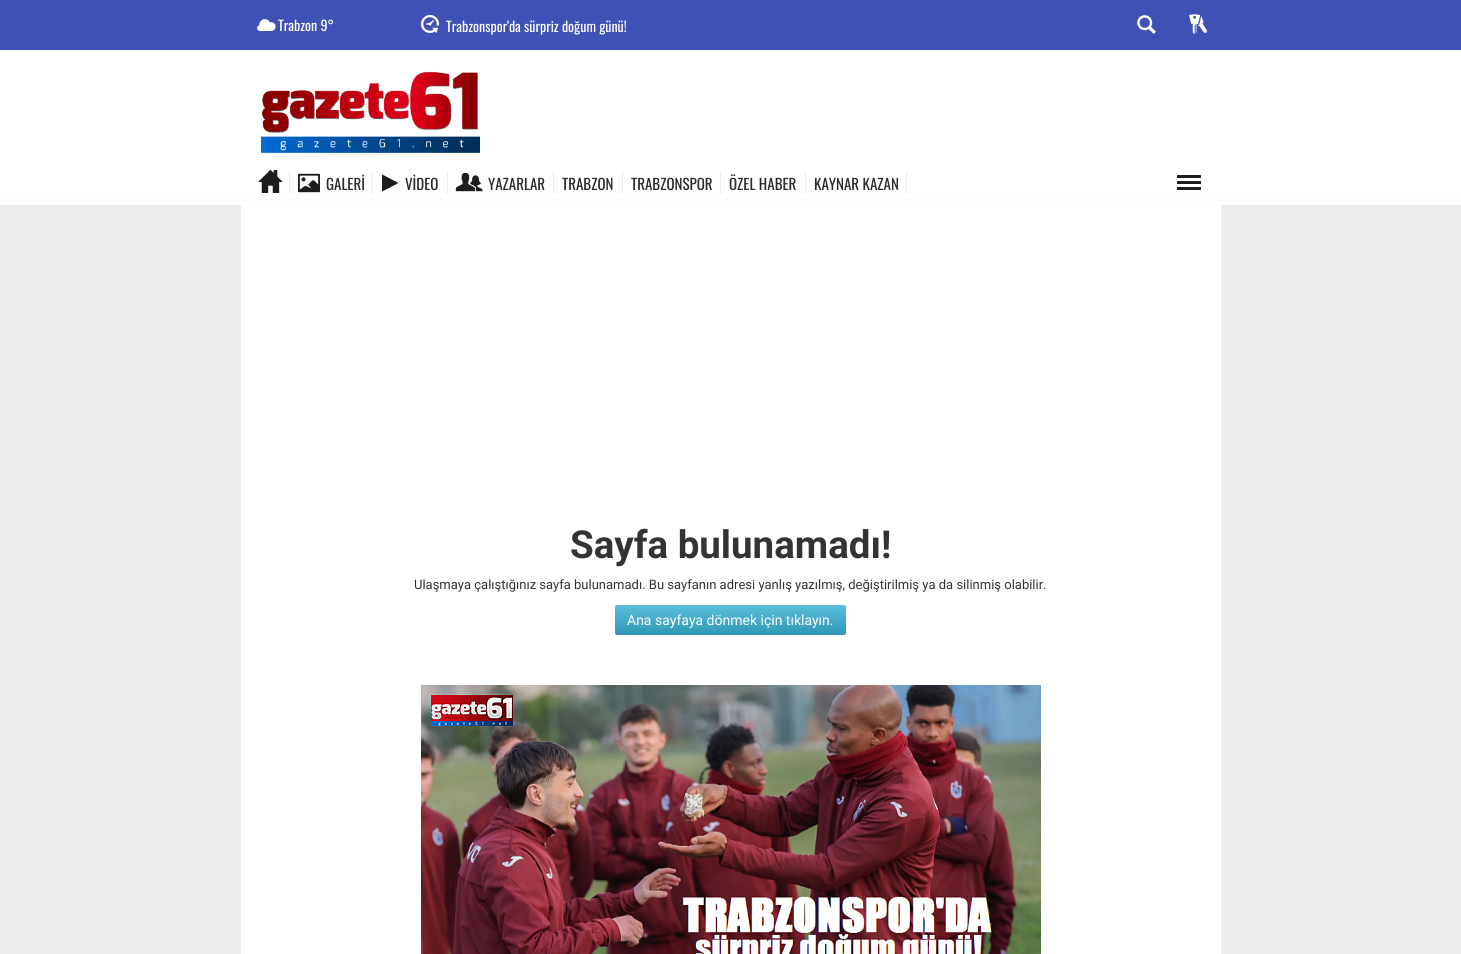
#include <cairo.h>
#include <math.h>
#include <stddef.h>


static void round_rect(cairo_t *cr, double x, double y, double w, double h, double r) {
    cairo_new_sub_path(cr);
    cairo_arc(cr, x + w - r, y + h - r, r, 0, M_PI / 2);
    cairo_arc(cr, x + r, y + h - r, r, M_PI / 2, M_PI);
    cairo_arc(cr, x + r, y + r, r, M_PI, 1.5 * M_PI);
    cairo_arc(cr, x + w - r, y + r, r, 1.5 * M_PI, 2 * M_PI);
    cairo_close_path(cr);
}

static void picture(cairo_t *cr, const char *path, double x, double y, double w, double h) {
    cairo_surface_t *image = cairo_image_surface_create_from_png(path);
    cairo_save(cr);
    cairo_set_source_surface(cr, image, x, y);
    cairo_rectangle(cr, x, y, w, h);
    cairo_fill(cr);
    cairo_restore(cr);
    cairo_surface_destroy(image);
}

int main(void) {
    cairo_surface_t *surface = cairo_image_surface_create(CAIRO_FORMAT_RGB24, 1461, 954);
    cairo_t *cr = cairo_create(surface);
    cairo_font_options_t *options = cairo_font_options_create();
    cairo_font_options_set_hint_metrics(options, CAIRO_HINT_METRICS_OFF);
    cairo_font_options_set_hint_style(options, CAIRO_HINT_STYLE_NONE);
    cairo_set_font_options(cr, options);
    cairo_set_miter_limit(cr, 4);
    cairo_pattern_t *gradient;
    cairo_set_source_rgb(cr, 0.933, 0.933, 0.933);
    cairo_paint(cr);
    cairo_set_source_rgb(cr, 1, 1, 1);
    cairo_rectangle(cr, 0, 50, 1461, 155);
    cairo_fill(cr);
    cairo_set_source_rgb(cr, 0.247, 0.318, 0.71);
    cairo_rectangle(cr, 0, 0, 1461, 50);
    cairo_fill(cr);
    cairo_set_source_rgb(cr, 0.235, 0.302, 0.675);
    cairo_rectangle(cr, 241, 0, 1, 50);
    cairo_fill(cr);
    picture(cr, "img1.png", 257, 19, 19, 12);
    cairo_select_font_face(cr, "Oswald", CAIRO_FONT_SLANT_NORMAL, CAIRO_FONT_WEIGHT_NORMAL);
    cairo_set_font_size(cr, 14);
    cairo_set_source_rgb(cr, 1, 1, 1);
    cairo_move_to(cr, 278, 31);
    cairo_show_text(cr, "Trabzon 9°");
    cairo_set_source_rgb(cr, 0.235, 0.302, 0.675);
    cairo_rectangle(cr, 400, 0, 1, 50);
    cairo_fill(cr);
    picture(cr, "img2.png", 421, 15, 18, 18);
    cairo_set_source_rgb(cr, 1, 1, 1);
    cairo_move_to(cr, 446, 32);
    cairo_show_text(cr, "Trabzonspor'da sürpriz doğum günü!");
    cairo_set_source_rgb(cr, 0.235, 0.302, 0.675);
    cairo_rectangle(cr, 1120, 0, 1, 50);
    cairo_fill(cr);
    picture(cr, "img3.png", 1137, 15, 19, 19);
    cairo_rectangle(cr, 1220, 0, 1, 50);
    cairo_fill(cr);
    cairo_rectangle(cr, 1171, 0, 1, 50);
    cairo_fill(cr);
    picture(cr, "img4.png", 1189, 14, 18, 20);
    picture(cr, "img5.png", 261, 71, 219, 82);
    cairo_set_source_rgb(cr, 0.98, 0.98, 0.98);
    cairo_rectangle(cr, 0, 199, 1461, 2);
    cairo_fill(cr);
    cairo_new_path(cr);
    cairo_move_to(cr, 289.5, 171);
    cairo_line_to(cr, 289.5, 195);
    cairo_set_source_rgb(cr, 0.867, 0.867, 0.867);
    cairo_set_line_width(cr, 1);
    cairo_set_dash(cr, (double[]){1, 1}, 2, 0);
    cairo_stroke(cr);
    picture(cr, "img6.png", 258, 169, 25, 24);
    cairo_new_path(cr);
    cairo_move_to(cr, 372.5, 171);
    cairo_line_to(cr, 372.5, 195);
    cairo_stroke(cr);
    picture(cr, "img7.png", 298, 173, 22, 20);
    cairo_set_font_size(cr, 15);
    cairo_set_source_rgb(cr, 0.165, 0.165, 0.165);
    cairo_move_to(cr, 326, 190);
    cairo_show_text(cr, "GALERİ");
    cairo_new_path(cr);
    cairo_move_to(cr, 447.5, 171);
    cairo_line_to(cr, 447.5, 195);
    cairo_set_source_rgb(cr, 0.867, 0.867, 0.867);
    cairo_stroke(cr);
    picture(cr, "img8.png", 382, 174, 16, 18);
    cairo_set_source_rgb(cr, 0.165, 0.165, 0.165);
    cairo_move_to(cr, 405, 190);
    cairo_show_text(cr, "VİDEO");
    cairo_new_path(cr);
    cairo_move_to(cr, 553.5, 171);
    cairo_line_to(cr, 553.5, 195);
    cairo_set_source_rgb(cr, 0.867, 0.867, 0.867);
    cairo_stroke(cr);
    picture(cr, "img9.png", 455, 172, 28, 20);
    cairo_set_source_rgb(cr, 0.165, 0.165, 0.165);
    cairo_move_to(cr, 488, 190);
    cairo_show_text(cr, "YAZARLAR");
    cairo_new_path(cr);
    cairo_move_to(cr, 622.5, 171);
    cairo_line_to(cr, 622.5, 195);
    cairo_set_source_rgb(cr, 0.867, 0.867, 0.867);
    cairo_stroke(cr);
    cairo_set_source_rgb(cr, 0.165, 0.165, 0.165);
    cairo_move_to(cr, 562, 190);
    cairo_show_text(cr, "TRABZON");
    cairo_new_path(cr);
    cairo_move_to(cr, 720.5, 171);
    cairo_line_to(cr, 720.5, 195);
    cairo_set_source_rgb(cr, 0.867, 0.867, 0.867);
    cairo_stroke(cr);
    cairo_set_source_rgb(cr, 0.165, 0.165, 0.165);
    cairo_move_to(cr, 631, 190);
    cairo_show_text(cr, "TRABZONSPOR");
    cairo_new_path(cr);
    cairo_move_to(cr, 805.5, 171);
    cairo_line_to(cr, 805.5, 195);
    cairo_set_source_rgb(cr, 0.867, 0.867, 0.867);
    cairo_stroke(cr);
    cairo_set_source_rgb(cr, 0.165, 0.165, 0.165);
    cairo_move_to(cr, 729, 190);
    cairo_show_text(cr, "ÖZEL HABER");
    cairo_new_path(cr);
    cairo_move_to(cr, 906.5, 171);
    cairo_line_to(cr, 906.5, 195);
    cairo_set_source_rgb(cr, 0.867, 0.867, 0.867);
    cairo_stroke(cr);
    cairo_set_source_rgb(cr, 0.165, 0.165, 0.165);
    cairo_move_to(cr, 814, 190);
    cairo_show_text(cr, "KAYNAR KAZAN");
    picture(cr, "img10.png", 1177, 175, 24, 15);
    cairo_set_source_rgb(cr, 1, 1, 1);
    cairo_rectangle(cr, 241, 205, 980, 749);
    cairo_fill(cr);
    cairo_select_font_face(cr, "Roboto", CAIRO_FONT_SLANT_NORMAL, CAIRO_FONT_WEIGHT_BOLD);
    cairo_set_font_size(cr, 38.5);
    cairo_set_source_rgb(cr, 0.2, 0.2, 0.2);
    cairo_move_to(cr, 570, 558);
    cairo_show_text(cr, "Sayfa bulunamadı!");
    cairo_select_font_face(cr, "Roboto", CAIRO_FONT_SLANT_NORMAL, CAIRO_FONT_WEIGHT_NORMAL);
    cairo_set_font_size(cr, 13);
    cairo_move_to(cr, 414, 589);
    cairo_show_text(cr, "Ulaşmaya çalıştığınız sayfa bulunamadı. Bu sayfanın adresi yanlış yazılmış, değiştirilmiş ya da silinmiş olabilir.");
    gradient = cairo_pattern_create_linear(731, 605, 731, 635);
    cairo_pattern_add_color_stop_rgba(gradient, 0, 0.357, 0.753, 0.871, 1);
    cairo_pattern_add_color_stop_rgba(gradient, 1, 0.184, 0.588, 0.706, 1);
    cairo_set_source(cr, gradient);
    cairo_pattern_destroy(gradient);
    round_rect(cr, 615, 605, 231, 30, 2);
    cairo_fill(cr);
    cairo_set_font_size(cr, 14);
    cairo_set_source_rgb(cr, 1, 1, 1);
    cairo_move_to(cr, 627, 625);
    cairo_show_text(cr, "Ana sayfaya dönmek için tıklayın.");
    picture(cr, "img11.png", 421, 685, 620, 269);
    cairo_surface_write_to_png(surface, "page.png");
    cairo_font_options_destroy(options);
    cairo_destroy(cr);
    cairo_surface_destroy(surface);
    return 0;
}
